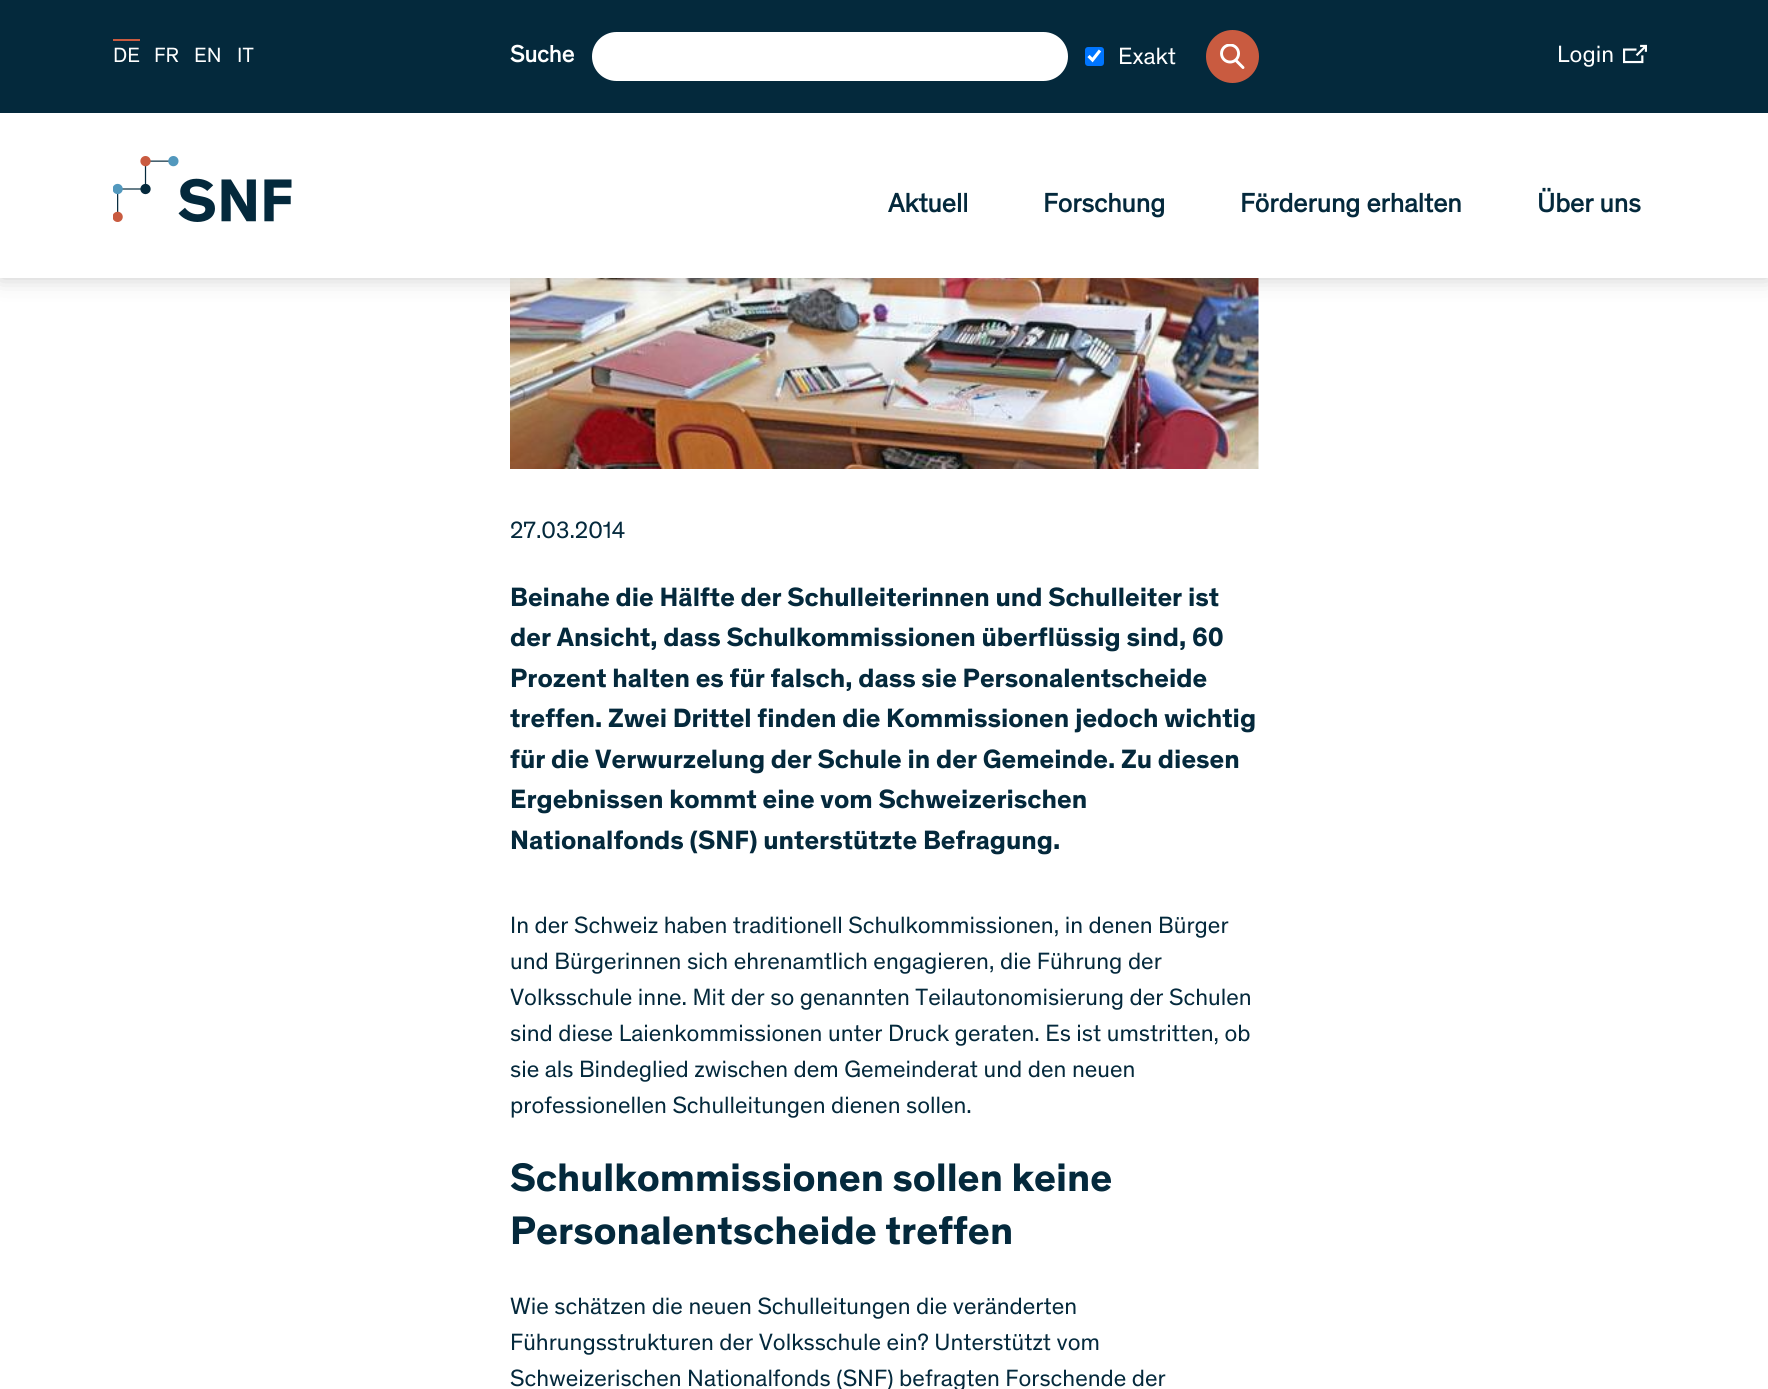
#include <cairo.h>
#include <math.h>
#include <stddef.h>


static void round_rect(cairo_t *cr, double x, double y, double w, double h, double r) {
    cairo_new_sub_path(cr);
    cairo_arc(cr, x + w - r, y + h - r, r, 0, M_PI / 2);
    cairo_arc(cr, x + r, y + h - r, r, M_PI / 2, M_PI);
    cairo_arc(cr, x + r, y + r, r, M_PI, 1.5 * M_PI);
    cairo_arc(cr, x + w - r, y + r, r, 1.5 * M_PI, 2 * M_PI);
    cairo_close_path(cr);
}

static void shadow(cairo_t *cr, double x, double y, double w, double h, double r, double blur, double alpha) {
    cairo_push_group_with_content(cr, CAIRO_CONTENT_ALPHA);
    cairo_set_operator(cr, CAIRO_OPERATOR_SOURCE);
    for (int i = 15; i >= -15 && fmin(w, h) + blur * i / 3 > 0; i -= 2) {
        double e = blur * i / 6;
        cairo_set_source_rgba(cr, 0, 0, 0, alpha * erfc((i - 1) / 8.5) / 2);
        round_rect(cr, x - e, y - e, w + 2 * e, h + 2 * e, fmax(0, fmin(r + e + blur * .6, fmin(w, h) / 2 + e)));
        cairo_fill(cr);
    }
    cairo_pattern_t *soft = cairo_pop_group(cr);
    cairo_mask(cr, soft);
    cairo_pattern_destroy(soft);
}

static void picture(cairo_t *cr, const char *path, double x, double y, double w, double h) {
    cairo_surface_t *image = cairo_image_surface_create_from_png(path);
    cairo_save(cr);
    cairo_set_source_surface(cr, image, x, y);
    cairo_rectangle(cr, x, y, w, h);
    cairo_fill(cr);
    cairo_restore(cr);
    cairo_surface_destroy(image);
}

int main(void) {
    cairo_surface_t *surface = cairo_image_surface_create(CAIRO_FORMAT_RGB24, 1768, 1389);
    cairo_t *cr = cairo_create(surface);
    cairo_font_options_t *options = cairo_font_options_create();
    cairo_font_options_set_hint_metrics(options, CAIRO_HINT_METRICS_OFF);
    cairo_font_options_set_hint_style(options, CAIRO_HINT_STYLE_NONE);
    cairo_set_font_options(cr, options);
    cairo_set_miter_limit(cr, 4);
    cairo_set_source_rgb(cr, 1, 1, 1);
    cairo_paint(cr);
    picture(cr, "img4.png", 510, 278, 749, 191);
    cairo_set_source_rgb(cr, 0.157, 0.157, 0.157);
    shadow(cr, 0, 0, 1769, 278, 0, 11, 0.25);
    cairo_set_source_rgb(cr, 0.016, 0.161, 0.235);
    cairo_rectangle(cr, 0, 0, 1768, 113);
    cairo_fill(cr);
    cairo_set_source_rgb(cr, 0.788, 0.357, 0.251);
    cairo_rectangle(cr, 113, 39, 27, 2);
    cairo_fill(cr);
    cairo_select_font_face(cr, "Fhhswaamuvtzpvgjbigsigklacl", CAIRO_FONT_SLANT_NORMAL, CAIRO_FONT_WEIGHT_NORMAL);
    cairo_set_font_size(cr, 21);
    cairo_set_source_rgb(cr, 1, 1, 1);
    cairo_move_to(cr, 113, 62);
    cairo_show_text(cr, "DE");
    cairo_move_to(cr, 154, 62);
    cairo_show_text(cr, "FR");
    cairo_move_to(cr, 194, 62);
    cairo_show_text(cr, "EN");
    cairo_move_to(cr, 237, 62);
    cairo_show_text(cr, "IT");
    cairo_select_font_face(cr, "Fhhswaamuvtzpvgjbigsigklacl", CAIRO_FONT_SLANT_NORMAL, CAIRO_FONT_WEIGHT_BOLD);
    cairo_set_font_size(cr, 24);
    cairo_move_to(cr, 510, 62);
    cairo_show_text(cr, "Suche");
    round_rect(cr, 591, 31, 478, 51, 25.5);
    cairo_fill_preserve(cr);
    cairo_set_source_rgb(cr, 0.016, 0.161, 0.235);
    cairo_stroke(cr);
    cairo_set_source_rgb(cr, 0, 0.459, 1);
    round_rect(cr, 1085, 47, 19, 19, 3);
    cairo_fill(cr);
    cairo_new_path(cr);
    cairo_move_to(cr, 1088.5, 56);
    cairo_line_to(cr, 1092.5, 60);
    cairo_line_to(cr, 1100, 50.5);
    cairo_set_source_rgb(cr, 1, 1, 1);
    cairo_set_line_width(cr, 3.1);
    cairo_stroke(cr);
    cairo_select_font_face(cr, "Fhhswaamuvtzpvgjbigsigklacl", CAIRO_FONT_SLANT_NORMAL, CAIRO_FONT_WEIGHT_NORMAL);
    cairo_move_to(cr, 1118, 64);
    cairo_show_text(cr, "Exakt");
    cairo_set_source_rgb(cr, 0.788, 0.357, 0.251);
    cairo_new_path(cr);
    cairo_arc(cr, 1232.5, 56.5, 26.5, 0, 2 * M_PI);
    cairo_fill(cr);
    picture(cr, "img1.png", 1220, 44, 25, 25);
    cairo_set_source_rgb(cr, 1, 1, 1);
    cairo_move_to(cr, 1557, 62);
    cairo_show_text(cr, "Login");
    picture(cr, "img2.png", 1623, 44, 24, 20);
    cairo_rectangle(cr, 0, 113, 1768, 165);
    cairo_fill(cr);
    picture(cr, "img3.png", 113, 156, 179, 66);
    cairo_select_font_face(cr, "Fhhswaamuvtzpvgjbigsigklacl", CAIRO_FONT_SLANT_NORMAL, CAIRO_FONT_WEIGHT_BOLD);
    cairo_set_font_size(cr, 27);
    cairo_set_source_rgb(cr, 0.016, 0.161, 0.235);
    cairo_move_to(cr, 888, 212);
    cairo_show_text(cr, "Aktuell");
    cairo_move_to(cr, 1043, 212);
    cairo_show_text(cr, "Forschung");
    cairo_move_to(cr, 1240, 212);
    cairo_show_text(cr, "Förderung erhalten");
    cairo_move_to(cr, 1537, 212);
    cairo_show_text(cr, "Über uns");
    cairo_select_font_face(cr, "Fhhswaamuvtzpvgjbigsigklacl", CAIRO_FONT_SLANT_NORMAL, CAIRO_FONT_WEIGHT_NORMAL);
    cairo_set_font_size(cr, 24);
    cairo_move_to(cr, 510, 538);
    cairo_show_text(cr, "27.03.2014");
    cairo_select_font_face(cr, "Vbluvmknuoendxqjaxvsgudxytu", CAIRO_FONT_SLANT_NORMAL, CAIRO_FONT_WEIGHT_BOLD);
    cairo_set_font_size(cr, 27);
    cairo_move_to(cr, 510, 606);
    cairo_show_text(cr, "Beinahe die Hälfte der Schulleiterinnen und Schulleiter ist");
    cairo_move_to(cr, 510, 646);
    cairo_show_text(cr, "der Ansicht, dass Schulkommissionen überflüssig sind, 60");
    cairo_move_to(cr, 510, 687);
    cairo_show_text(cr, "Prozent halten es für falsch, dass sie Personalentscheide");
    cairo_move_to(cr, 510, 727);
    cairo_show_text(cr, "treffen. Zwei Drittel finden die Kommissionen jedoch wichtig");
    cairo_move_to(cr, 510, 768);
    cairo_show_text(cr, "für die Verwurzelung der Schule in der Gemeinde. Zu diesen");
    cairo_move_to(cr, 510, 808);
    cairo_show_text(cr, "Ergebnissen kommt eine vom Schweizerischen");
    cairo_move_to(cr, 510, 849);
    cairo_show_text(cr, "Nationalfonds (SNF) unterstützte Befragung.");
    cairo_select_font_face(cr, "Fhhswaamuvtzpvgjbigsigklacl", CAIRO_FONT_SLANT_NORMAL, CAIRO_FONT_WEIGHT_NORMAL);
    cairo_set_font_size(cr, 24);
    cairo_move_to(cr, 510, 933);
    cairo_show_text(cr, "In der Schweiz haben traditionell Schulkommissionen, in denen Bürger");
    cairo_move_to(cr, 510, 969);
    cairo_show_text(cr, "und Bürgerinnen sich ehrenamtlich engagieren, die Führung der");
    cairo_move_to(cr, 510, 1005);
    cairo_show_text(cr, "Volksschule inne. Mit der so genannten Teilautonomisierung der Schulen");
    cairo_move_to(cr, 510, 1041);
    cairo_show_text(cr, "sind diese Laienkommissionen unter Druck geraten. Es ist umstritten, ob");
    cairo_move_to(cr, 510, 1077);
    cairo_show_text(cr, "sie als Bindeglied zwischen dem Gemeinderat und den neuen");
    cairo_move_to(cr, 510, 1113);
    cairo_show_text(cr, "professionellen Schulleitungen dienen sollen.");
    cairo_select_font_face(cr, "Vbluvmknuoendxqjaxvsgudxytu", CAIRO_FONT_SLANT_NORMAL, CAIRO_FONT_WEIGHT_BOLD);
    cairo_set_font_size(cr, 40.5);
    cairo_move_to(cr, 510, 1191);
    cairo_show_text(cr, "Schulkommissionen sollen keine");
    cairo_move_to(cr, 510, 1244);
    cairo_show_text(cr, "Personalentscheide treffen");
    cairo_select_font_face(cr, "Fhhswaamuvtzpvgjbigsigklacl", CAIRO_FONT_SLANT_NORMAL, CAIRO_FONT_WEIGHT_NORMAL);
    cairo_set_font_size(cr, 24);
    cairo_move_to(cr, 510, 1314);
    cairo_show_text(cr, "Wie schätzen die neuen Schulleitungen die veränderten");
    cairo_move_to(cr, 510, 1350);
    cairo_show_text(cr, "Führungsstrukturen der Volksschule ein? Unterstützt vom");
    cairo_move_to(cr, 510, 1386);
    cairo_show_text(cr, "Schweizerischen Nationalfonds (SNF) befragten Forschende der");
    cairo_surface_write_to_png(surface, "page.png");
    cairo_font_options_destroy(options);
    cairo_destroy(cr);
    cairo_surface_destroy(surface);
    return 0;
}
